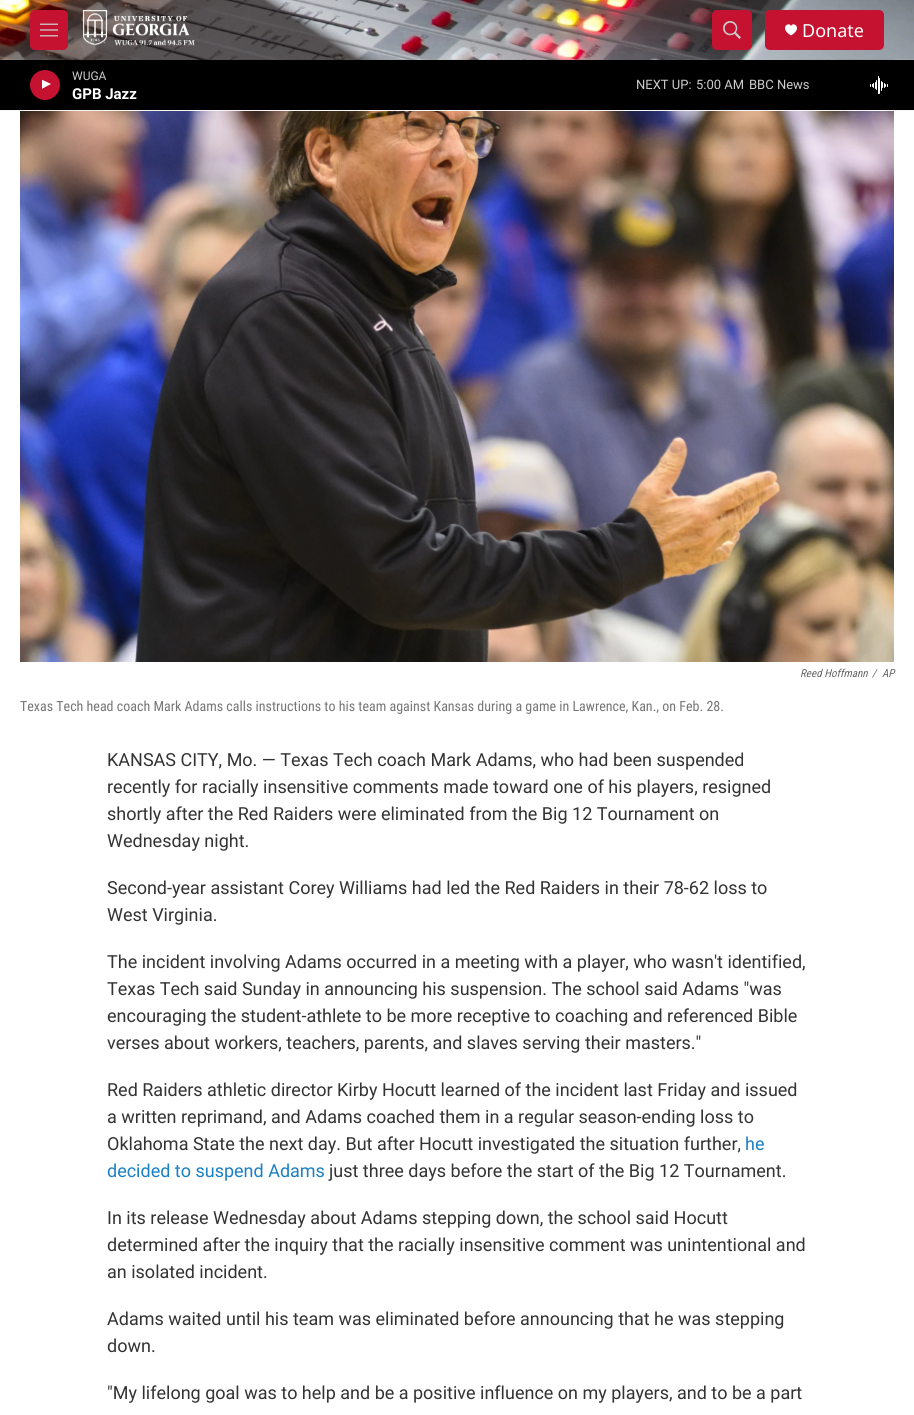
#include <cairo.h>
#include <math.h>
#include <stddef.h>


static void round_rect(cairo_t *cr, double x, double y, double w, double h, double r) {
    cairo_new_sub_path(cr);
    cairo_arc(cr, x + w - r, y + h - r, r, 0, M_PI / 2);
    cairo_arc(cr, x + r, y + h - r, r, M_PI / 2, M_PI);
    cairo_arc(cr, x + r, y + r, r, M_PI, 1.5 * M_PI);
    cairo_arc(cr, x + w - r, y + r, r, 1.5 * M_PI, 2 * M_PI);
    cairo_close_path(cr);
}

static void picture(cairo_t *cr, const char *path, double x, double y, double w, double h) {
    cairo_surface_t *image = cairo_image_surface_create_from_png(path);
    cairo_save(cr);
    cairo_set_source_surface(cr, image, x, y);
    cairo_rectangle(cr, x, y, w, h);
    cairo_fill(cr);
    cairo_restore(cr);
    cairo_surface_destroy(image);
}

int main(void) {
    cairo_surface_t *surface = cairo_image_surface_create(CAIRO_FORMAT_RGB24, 914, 1415);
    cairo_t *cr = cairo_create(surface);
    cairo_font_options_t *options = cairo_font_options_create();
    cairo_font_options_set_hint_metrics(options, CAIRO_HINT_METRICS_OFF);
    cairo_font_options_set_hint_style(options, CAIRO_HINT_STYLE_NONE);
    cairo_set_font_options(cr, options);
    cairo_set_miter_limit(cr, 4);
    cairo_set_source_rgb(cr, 1, 1, 1);
    cairo_paint(cr);
    picture(cr, "img6.png", 20, 59, 874, 603);
    cairo_set_source_rgb(cr, 0.961, 0.961, 0.961);
    cairo_rectangle(cr, 0, 110, 914, 1);
    cairo_fill(cr);
    picture(cr, "img1.png", 0, 0, 914, 60);
    cairo_set_source_rgb(cr, 0.769, 0.071, 0.188);
    round_rect(cr, 30, 10, 38, 40, 5);
    cairo_fill(cr);
    picture(cr, "img2.png", 40, 23, 18, 14);
    picture(cr, "img3.png", 83, 10, 112, 36);
    round_rect(cr, 712, 10, 40, 40, 5);
    cairo_fill(cr);
    picture(cr, "img4.png", 723, 21, 18, 18);
    round_rect(cr, 765, 10, 119, 40, 5);
    cairo_fill(cr);
    cairo_set_source_rgb(cr, 1, 1, 1);
    cairo_new_path(cr);
    cairo_move_to(cr, 791, 26);
    cairo_curve_to(cr, 789, 21, 778.5, 28, 791, 35.5);
    cairo_curve_to(cr, 803.5, 28, 793, 21, 791, 26);
    cairo_close_path(cr);
    cairo_fill(cr);
    cairo_select_font_face(cr, "Noto Sans", CAIRO_FONT_SLANT_NORMAL, CAIRO_FONT_WEIGHT_NORMAL);
    cairo_set_font_size(cr, 18);
    cairo_move_to(cr, 802, 37);
    cairo_show_text(cr, "Donate");
    cairo_set_source_rgb(cr, 0, 0, 0);
    cairo_rectangle(cr, 0, 60, 914, 50);
    cairo_fill(cr);
    cairo_set_source_rgb(cr, 0.769, 0.071, 0.188);
    cairo_arc(cr, 45, 85, 15, 0, 2 * M_PI);
    cairo_fill(cr);
    cairo_save(cr);
    cairo_rectangle(cr, 42, 78, 12, 15);
    cairo_clip(cr);
    cairo_set_source_rgb(cr, 1, 1, 1);
    cairo_new_path(cr);
    cairo_move_to(cr, 41.5, 79.5);
    cairo_line_to(cr, 51, 84);
    cairo_line_to(cr, 41.5, 89);
    cairo_close_path(cr);
    cairo_fill(cr);
    cairo_restore(cr);
    cairo_select_font_face(cr, "Roboto", CAIRO_FONT_SLANT_NORMAL, CAIRO_FONT_WEIGHT_NORMAL);
    cairo_set_font_size(cr, 12);
    cairo_set_source_rgb(cr, 0.8, 0.8, 0.8);
    cairo_move_to(cr, 72, 80);
    cairo_show_text(cr, "WUGA");
    cairo_select_font_face(cr, "Roboto", CAIRO_FONT_SLANT_NORMAL, CAIRO_FONT_WEIGHT_BOLD);
    cairo_set_font_size(cr, 15);
    cairo_set_source_rgb(cr, 1, 1, 1);
    cairo_move_to(cr, 72, 99);
    cairo_show_text(cr, "GPB Jazz");
    cairo_select_font_face(cr, "Roboto", CAIRO_FONT_SLANT_NORMAL, CAIRO_FONT_WEIGHT_NORMAL);
    cairo_set_font_size(cr, 13);
    cairo_set_source_rgb(cr, 0.8, 0.8, 0.8);
    cairo_move_to(cr, 636, 89);
    cairo_show_text(cr, "NEXT UP:");
    cairo_move_to(cr, 696, 89);
    cairo_show_text(cr, "5:00 AM");
    cairo_move_to(cr, 749, 89);
    cairo_show_text(cr, "BBC News");
    picture(cr, "img5.png", 870, 76, 18, 18);
    cairo_select_font_face(cr, "Roboto Condensed", CAIRO_FONT_SLANT_ITALIC, CAIRO_FONT_WEIGHT_NORMAL);
    cairo_set_font_size(cr, 11);
    cairo_set_source_rgb(cr, 0.4, 0.4, 0.4);
    cairo_move_to(cr, 800, 677);
    cairo_show_text(cr, "Reed Hoffmann");
    cairo_move_to(cr, 872, 677);
    cairo_show_text(cr, "/");
    cairo_move_to(cr, 882, 677);
    cairo_show_text(cr, "AP");
    cairo_select_font_face(cr, "Roboto Condensed", CAIRO_FONT_SLANT_NORMAL, CAIRO_FONT_WEIGHT_NORMAL);
    cairo_set_font_size(cr, 14);
    cairo_set_source_rgb(cr, 0.463, 0.463, 0.463);
    cairo_move_to(cr, 20, 711);
    cairo_show_text(cr, "Texas Tech head coach Mark Adams calls instructions to his team against Kansas during a game in Lawrence, Kan., on Feb. 28.");
    cairo_select_font_face(cr, "Roboto", CAIRO_FONT_SLANT_NORMAL, CAIRO_FONT_WEIGHT_NORMAL);
    cairo_set_font_size(cr, 18);
    cairo_set_source_rgb(cr, 0.2, 0.2, 0.2);
    cairo_move_to(cr, 107, 766);
    cairo_show_text(cr, "KANSAS CITY, Mo. — Texas Tech coach Mark Adams, who had been suspended");
    cairo_move_to(cr, 107, 793);
    cairo_show_text(cr, "recently for racially insensitive comments made toward one of his players, resigned");
    cairo_move_to(cr, 107, 820);
    cairo_show_text(cr, "shortly after the Red Raiders were eliminated from the Big 12 Tournament on");
    cairo_move_to(cr, 107, 847);
    cairo_show_text(cr, "Wednesday night.");
    cairo_move_to(cr, 107, 894);
    cairo_show_text(cr, "Second-year assistant Corey Williams had led the Red Raiders in their 78-62 loss to");
    cairo_move_to(cr, 107, 921);
    cairo_show_text(cr, "West Virginia.");
    cairo_move_to(cr, 107, 968);
    cairo_show_text(cr, "The incident involving Adams occurred in a meeting with a player, who wasn't identified,");
    cairo_move_to(cr, 107, 995);
    cairo_show_text(cr, "Texas Tech said Sunday in announcing his suspension. The school said Adams \"was");
    cairo_move_to(cr, 107, 1022);
    cairo_show_text(cr, "encouraging the student-athlete to be more receptive to coaching and referenced Bible");
    cairo_move_to(cr, 107, 1049);
    cairo_show_text(cr, "verses about workers, teachers, parents, and slaves serving their masters.\"");
    cairo_move_to(cr, 107, 1096);
    cairo_show_text(cr, "Red Raiders athletic director Kirby Hocutt learned of the incident last Friday and issued");
    cairo_move_to(cr, 107, 1123);
    cairo_show_text(cr, "a written reprimand, and Adams coached them in a regular season-ending loss to");
    cairo_move_to(cr, 107, 1150);
    cairo_show_text(cr, "Oklahoma State the next day. But after Hocutt investigated the situation further,");
    cairo_set_source_rgb(cr, 0.102, 0.498, 0.765);
    cairo_move_to(cr, 745, 1150);
    cairo_show_text(cr, "he");
    cairo_move_to(cr, 107, 1177);
    cairo_show_text(cr, "decided to suspend Adams");
    cairo_set_source_rgb(cr, 0.2, 0.2, 0.2);
    cairo_move_to(cr, 329, 1177);
    cairo_show_text(cr, "just three days before the start of the Big 12 Tournament.");
    cairo_move_to(cr, 107, 1224);
    cairo_show_text(cr, "In its release Wednesday about Adams stepping down, the school said Hocutt");
    cairo_move_to(cr, 107, 1251);
    cairo_show_text(cr, "determined after the inquiry that the racially insensitive comment was unintentional and");
    cairo_move_to(cr, 107, 1278);
    cairo_show_text(cr, "an isolated incident.");
    cairo_move_to(cr, 107, 1325);
    cairo_show_text(cr, "Adams waited until his team was eliminated before announcing that he was stepping");
    cairo_move_to(cr, 107, 1352);
    cairo_show_text(cr, "down.");
    cairo_move_to(cr, 107, 1399);
    cairo_show_text(cr, "\"My lifelong goal was to help and be a positive influence on my players, and to be a part");
    cairo_surface_write_to_png(surface, "page.png");
    cairo_font_options_destroy(options);
    cairo_destroy(cr);
    cairo_surface_destroy(surface);
    return 0;
}
